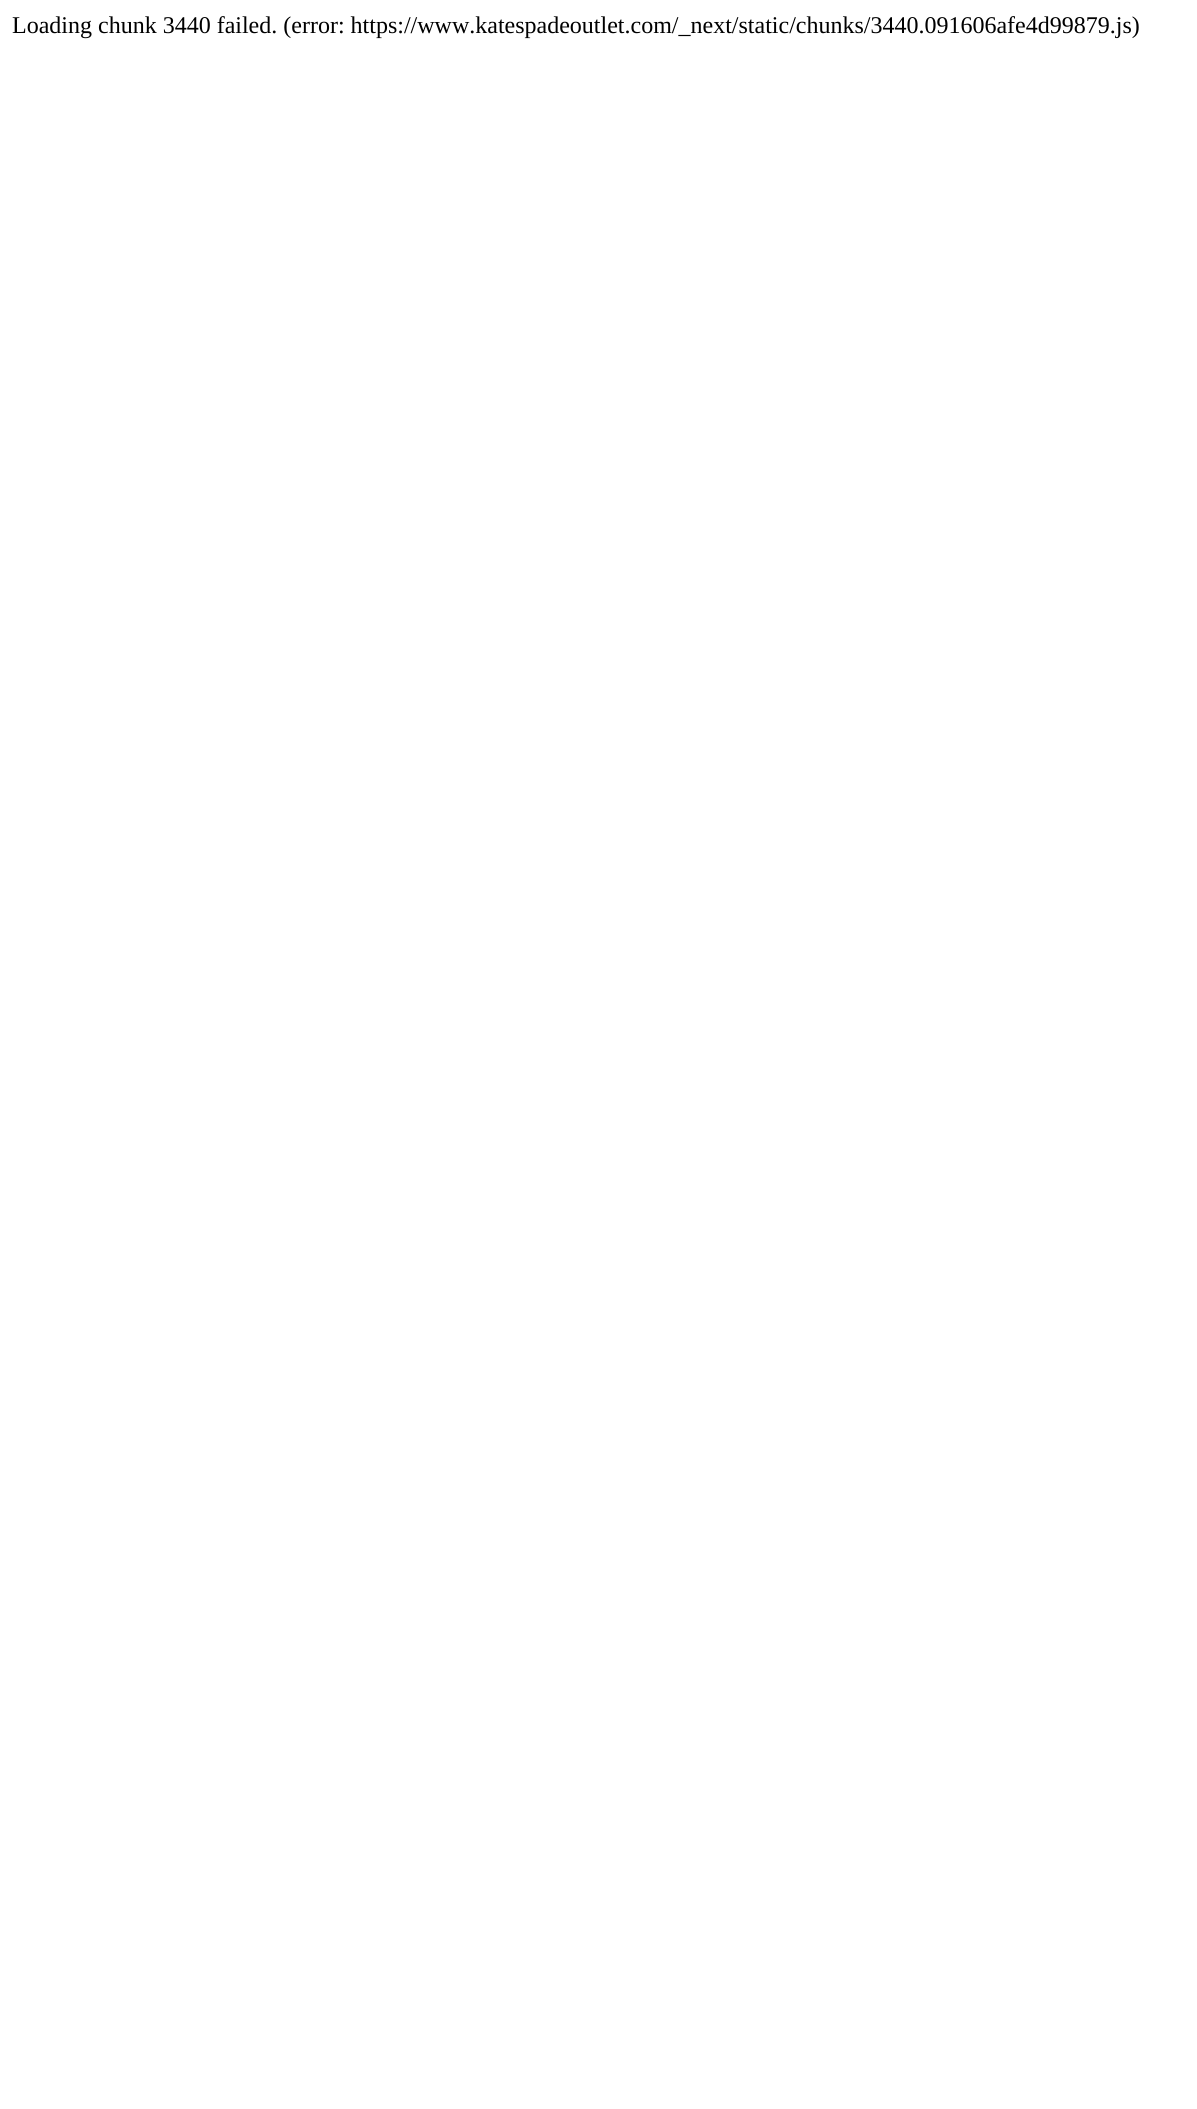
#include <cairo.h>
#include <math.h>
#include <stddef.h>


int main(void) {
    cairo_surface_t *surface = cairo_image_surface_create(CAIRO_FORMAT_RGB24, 1197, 2109);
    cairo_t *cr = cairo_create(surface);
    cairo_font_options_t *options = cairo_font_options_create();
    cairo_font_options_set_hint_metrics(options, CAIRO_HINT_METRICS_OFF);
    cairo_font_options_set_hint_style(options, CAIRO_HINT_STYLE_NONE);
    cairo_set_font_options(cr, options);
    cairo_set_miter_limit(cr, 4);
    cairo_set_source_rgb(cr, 1, 1, 1);
    cairo_paint(cr);
    cairo_select_font_face(cr, "Liberation Serif", CAIRO_FONT_SLANT_NORMAL, CAIRO_FONT_WEIGHT_NORMAL);
    cairo_set_font_size(cr, 24);
    cairo_set_source_rgb(cr, 0, 0, 0);
    cairo_move_to(cr, 12, 33);
    cairo_show_text(cr, "Loading chunk 3440 failed. (error: https://www.katespadeoutlet.com/_next/static/chunks/3440.091606afe4d99879.js)");
    cairo_surface_write_to_png(surface, "page.png");
    cairo_font_options_destroy(options);
    cairo_destroy(cr);
    cairo_surface_destroy(surface);
    return 0;
}
